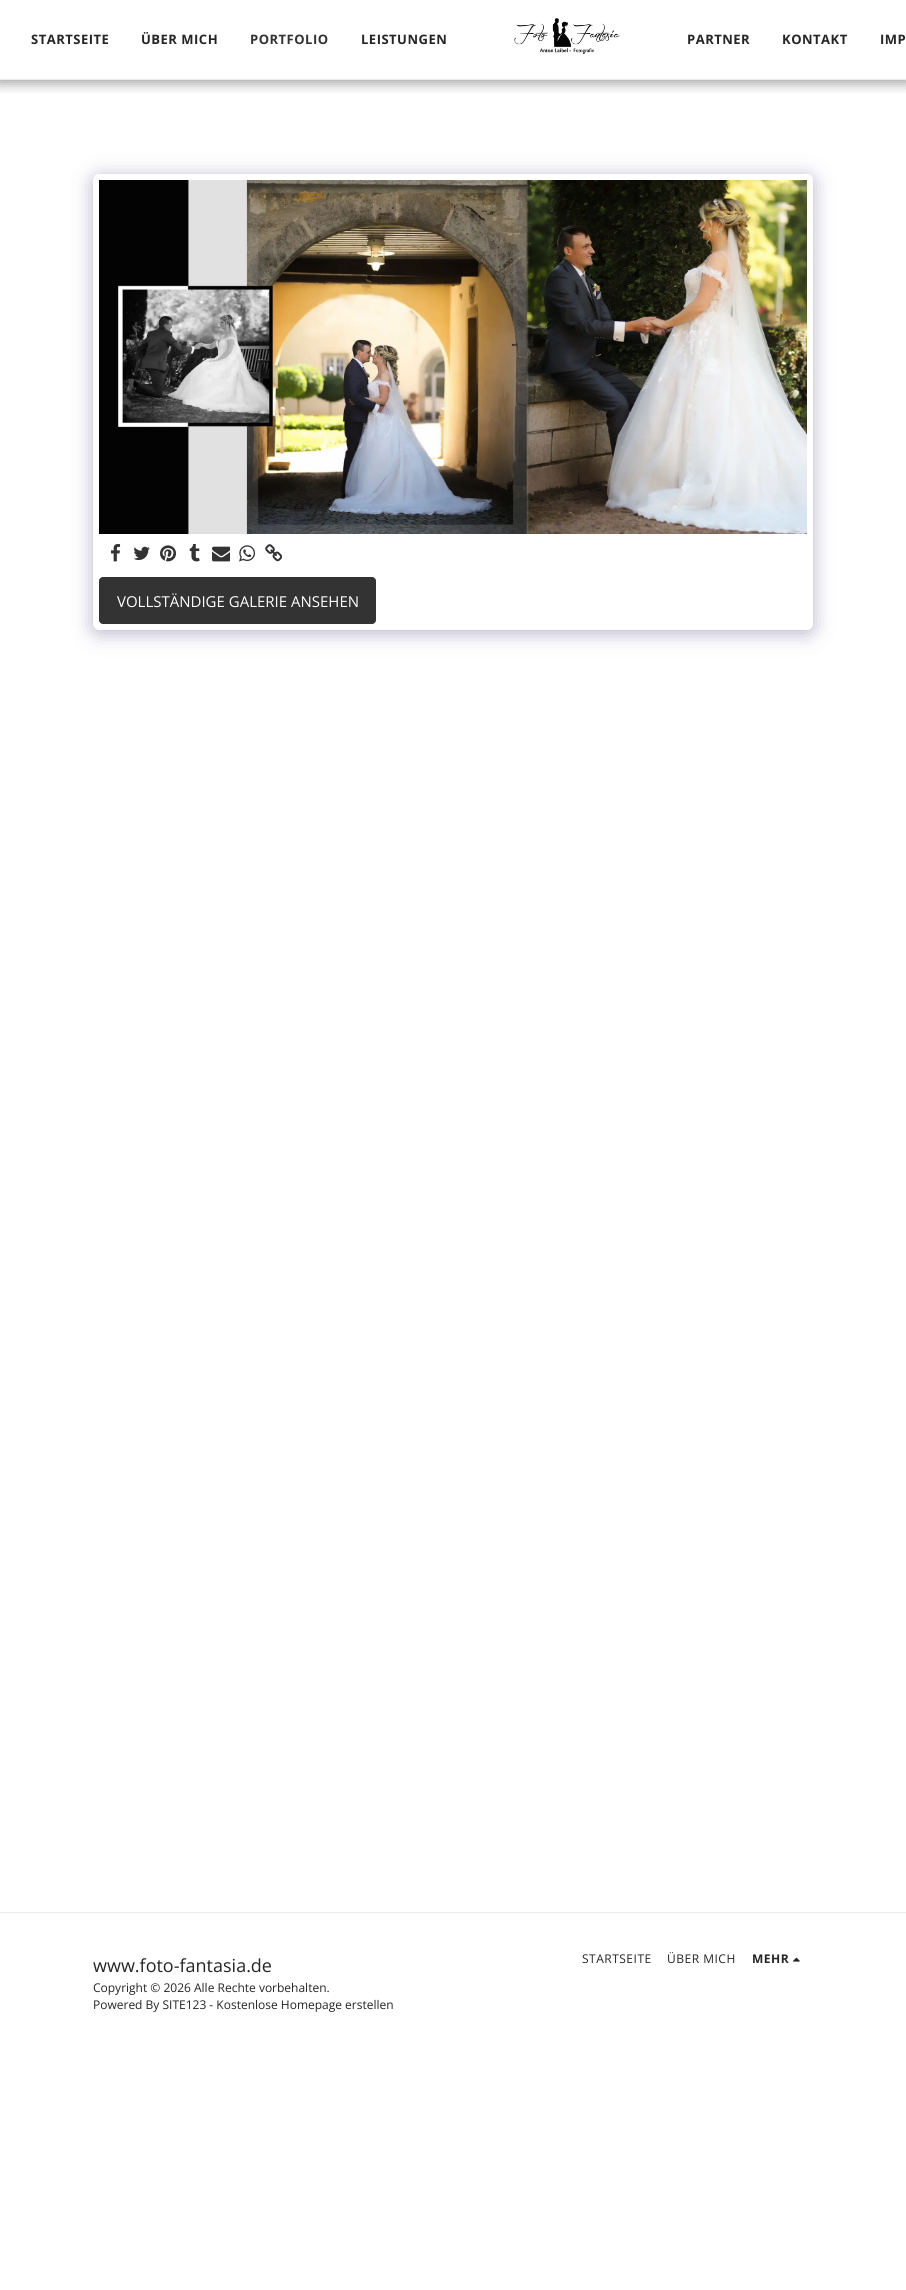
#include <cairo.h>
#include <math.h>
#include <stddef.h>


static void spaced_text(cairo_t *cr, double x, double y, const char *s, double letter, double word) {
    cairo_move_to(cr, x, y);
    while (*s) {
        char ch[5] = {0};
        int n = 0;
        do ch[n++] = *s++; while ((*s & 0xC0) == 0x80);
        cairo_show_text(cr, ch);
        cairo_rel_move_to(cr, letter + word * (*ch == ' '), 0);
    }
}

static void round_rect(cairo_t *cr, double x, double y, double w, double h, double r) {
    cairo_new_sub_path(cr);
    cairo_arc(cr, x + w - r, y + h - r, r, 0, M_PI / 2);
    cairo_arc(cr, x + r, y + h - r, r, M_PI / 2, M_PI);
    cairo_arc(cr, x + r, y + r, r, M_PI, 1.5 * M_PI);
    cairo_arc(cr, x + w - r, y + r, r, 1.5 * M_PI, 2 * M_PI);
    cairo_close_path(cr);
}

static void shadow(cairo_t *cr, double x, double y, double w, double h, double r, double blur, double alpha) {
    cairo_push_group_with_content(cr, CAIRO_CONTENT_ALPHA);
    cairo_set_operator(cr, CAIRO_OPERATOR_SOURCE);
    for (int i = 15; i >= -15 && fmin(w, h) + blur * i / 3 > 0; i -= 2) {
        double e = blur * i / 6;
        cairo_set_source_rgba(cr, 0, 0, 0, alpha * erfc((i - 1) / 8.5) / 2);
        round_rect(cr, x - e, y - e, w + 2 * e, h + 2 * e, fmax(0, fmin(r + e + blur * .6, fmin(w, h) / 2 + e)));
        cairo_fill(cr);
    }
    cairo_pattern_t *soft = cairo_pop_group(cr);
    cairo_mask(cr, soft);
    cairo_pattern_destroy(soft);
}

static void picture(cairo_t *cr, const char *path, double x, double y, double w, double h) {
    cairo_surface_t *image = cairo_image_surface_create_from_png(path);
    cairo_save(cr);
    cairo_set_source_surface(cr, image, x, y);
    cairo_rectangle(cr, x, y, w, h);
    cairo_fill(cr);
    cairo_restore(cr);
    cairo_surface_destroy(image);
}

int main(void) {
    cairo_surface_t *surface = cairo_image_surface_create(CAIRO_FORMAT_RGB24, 906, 2290);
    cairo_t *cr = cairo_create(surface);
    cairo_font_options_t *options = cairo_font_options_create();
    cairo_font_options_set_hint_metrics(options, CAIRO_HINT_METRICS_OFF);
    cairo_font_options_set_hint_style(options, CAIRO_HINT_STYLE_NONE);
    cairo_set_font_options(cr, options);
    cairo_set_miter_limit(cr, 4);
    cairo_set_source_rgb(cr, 1, 1, 1);
    cairo_paint(cr);
    cairo_save(cr);
    cairo_rectangle(cr, 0, 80, 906, 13);
    cairo_clip(cr);
    cairo_set_source_rgb(cr, 0, 0, 0);
    shadow(cr, -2, 0, 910, 84, 0, 6, 0.35);
    cairo_restore(cr);
    cairo_set_source_rgb(cr, 0.922, 0.922, 0.922);
    cairo_rectangle(cr, 0, 79, 906, 1);
    cairo_fill(cr);
    cairo_select_font_face(cr, "Open Sans", CAIRO_FONT_SLANT_NORMAL, CAIRO_FONT_WEIGHT_BOLD);
    cairo_set_font_size(cr, 13);
    cairo_set_source_rgb(cr, 0.145, 0.145, 0.145);
    spaced_text(cr, 31, 44, "STARTSEITE", 0.5, 0);
    spaced_text(cr, 141, 44, "ÜBER MICH", 0.5, 0);
    cairo_set_source_rgb(cr, 0.2, 0.2, 0.2);
    spaced_text(cr, 250, 44, "PORTFOLIO", 0.5, 0);
    cairo_set_source_rgb(cr, 0.145, 0.145, 0.145);
    spaced_text(cr, 361, 44, "LEISTUNGEN", 0.5, 0);
    picture(cr, "img1.png", 514, 18, 106, 36);
    spaced_text(cr, 687, 44, "PARTNER", 0.5, 0);
    spaced_text(cr, 782, 44, "KONTAKT", 0.5, 0);
    spaced_text(cr, 880, 44, "IMP", 0.5, 0);
    cairo_set_source_rgb(cr, 0.302, 0.247, 0.478);
    shadow(cr, 93, 177, 720, 456, 6, 10, 0.4);
    cairo_set_source_rgb(cr, 1, 1, 1);
    round_rect(cr, 93, 174, 720, 456, 6);
    cairo_fill(cr);
    picture(cr, "img2.png", 99, 180, 708, 354);
    picture(cr, "img3.png", 111, 544, 10, 18);
    picture(cr, "img4.png", 133, 546, 17, 15);
    picture(cr, "img5.png", 160, 545, 16, 17);
    picture(cr, "img6.png", 189, 544, 11, 18);
    picture(cr, "img7.png", 212, 546, 18, 16);
    picture(cr, "img8.png", 239, 545, 16, 17);
    picture(cr, "img9.png", 265, 544, 17, 18);
    cairo_set_source_rgb(cr, 0.2, 0.2, 0.2);
    round_rect(cr, 99.5, 577.5, 276, 46, 3.5);
    cairo_fill_preserve(cr);
    cairo_set_line_width(cr, 1);
    cairo_stroke(cr);
    cairo_select_font_face(cr, "Open Sans", CAIRO_FONT_SLANT_NORMAL, CAIRO_FONT_WEIGHT_NORMAL);
    cairo_set_font_size(cr, 15);
    cairo_set_source_rgb(cr, 1, 1, 1);
    cairo_move_to(cr, 117, 607);
    cairo_show_text(cr, "VOLLSTÄNDIGE GALERIE ANSEHEN");
    cairo_set_source_rgb(cr, 0.922, 0.922, 0.922);
    cairo_rectangle(cr, 0, 1912, 906, 1);
    cairo_fill(cr);
    cairo_set_font_size(cr, 18);
    cairo_set_source_rgb(cr, 0.145, 0.145, 0.145);
    cairo_move_to(cr, 93, 1972);
    cairo_show_text(cr, "www.foto-fantasia.de");
    cairo_set_font_size(cr, 12);
    cairo_move_to(cr, 93, 1992);
    cairo_show_text(cr, "Copyright © 2026 Alle Rechte vorbehalten.");
    cairo_move_to(cr, 93, 2009);
    cairo_show_text(cr, "Powered By SITE123 - Kostenlose Homepage erstellen");
    spaced_text(cr, 582, 1963, "STARTSEITE", 0.5, 0);
    spaced_text(cr, 667, 1963, "ÜBER MICH", 0.5, 0);
    cairo_select_font_face(cr, "Open Sans", CAIRO_FONT_SLANT_NORMAL, CAIRO_FONT_WEIGHT_BOLD);
    spaced_text(cr, 752, 1963, "MEHR", 0.5, 0);
    picture(cr, "img10.png", 793, 1957, 7, 5);
    cairo_surface_write_to_png(surface, "page.png");
    cairo_font_options_destroy(options);
    cairo_destroy(cr);
    cairo_surface_destroy(surface);
    return 0;
}
